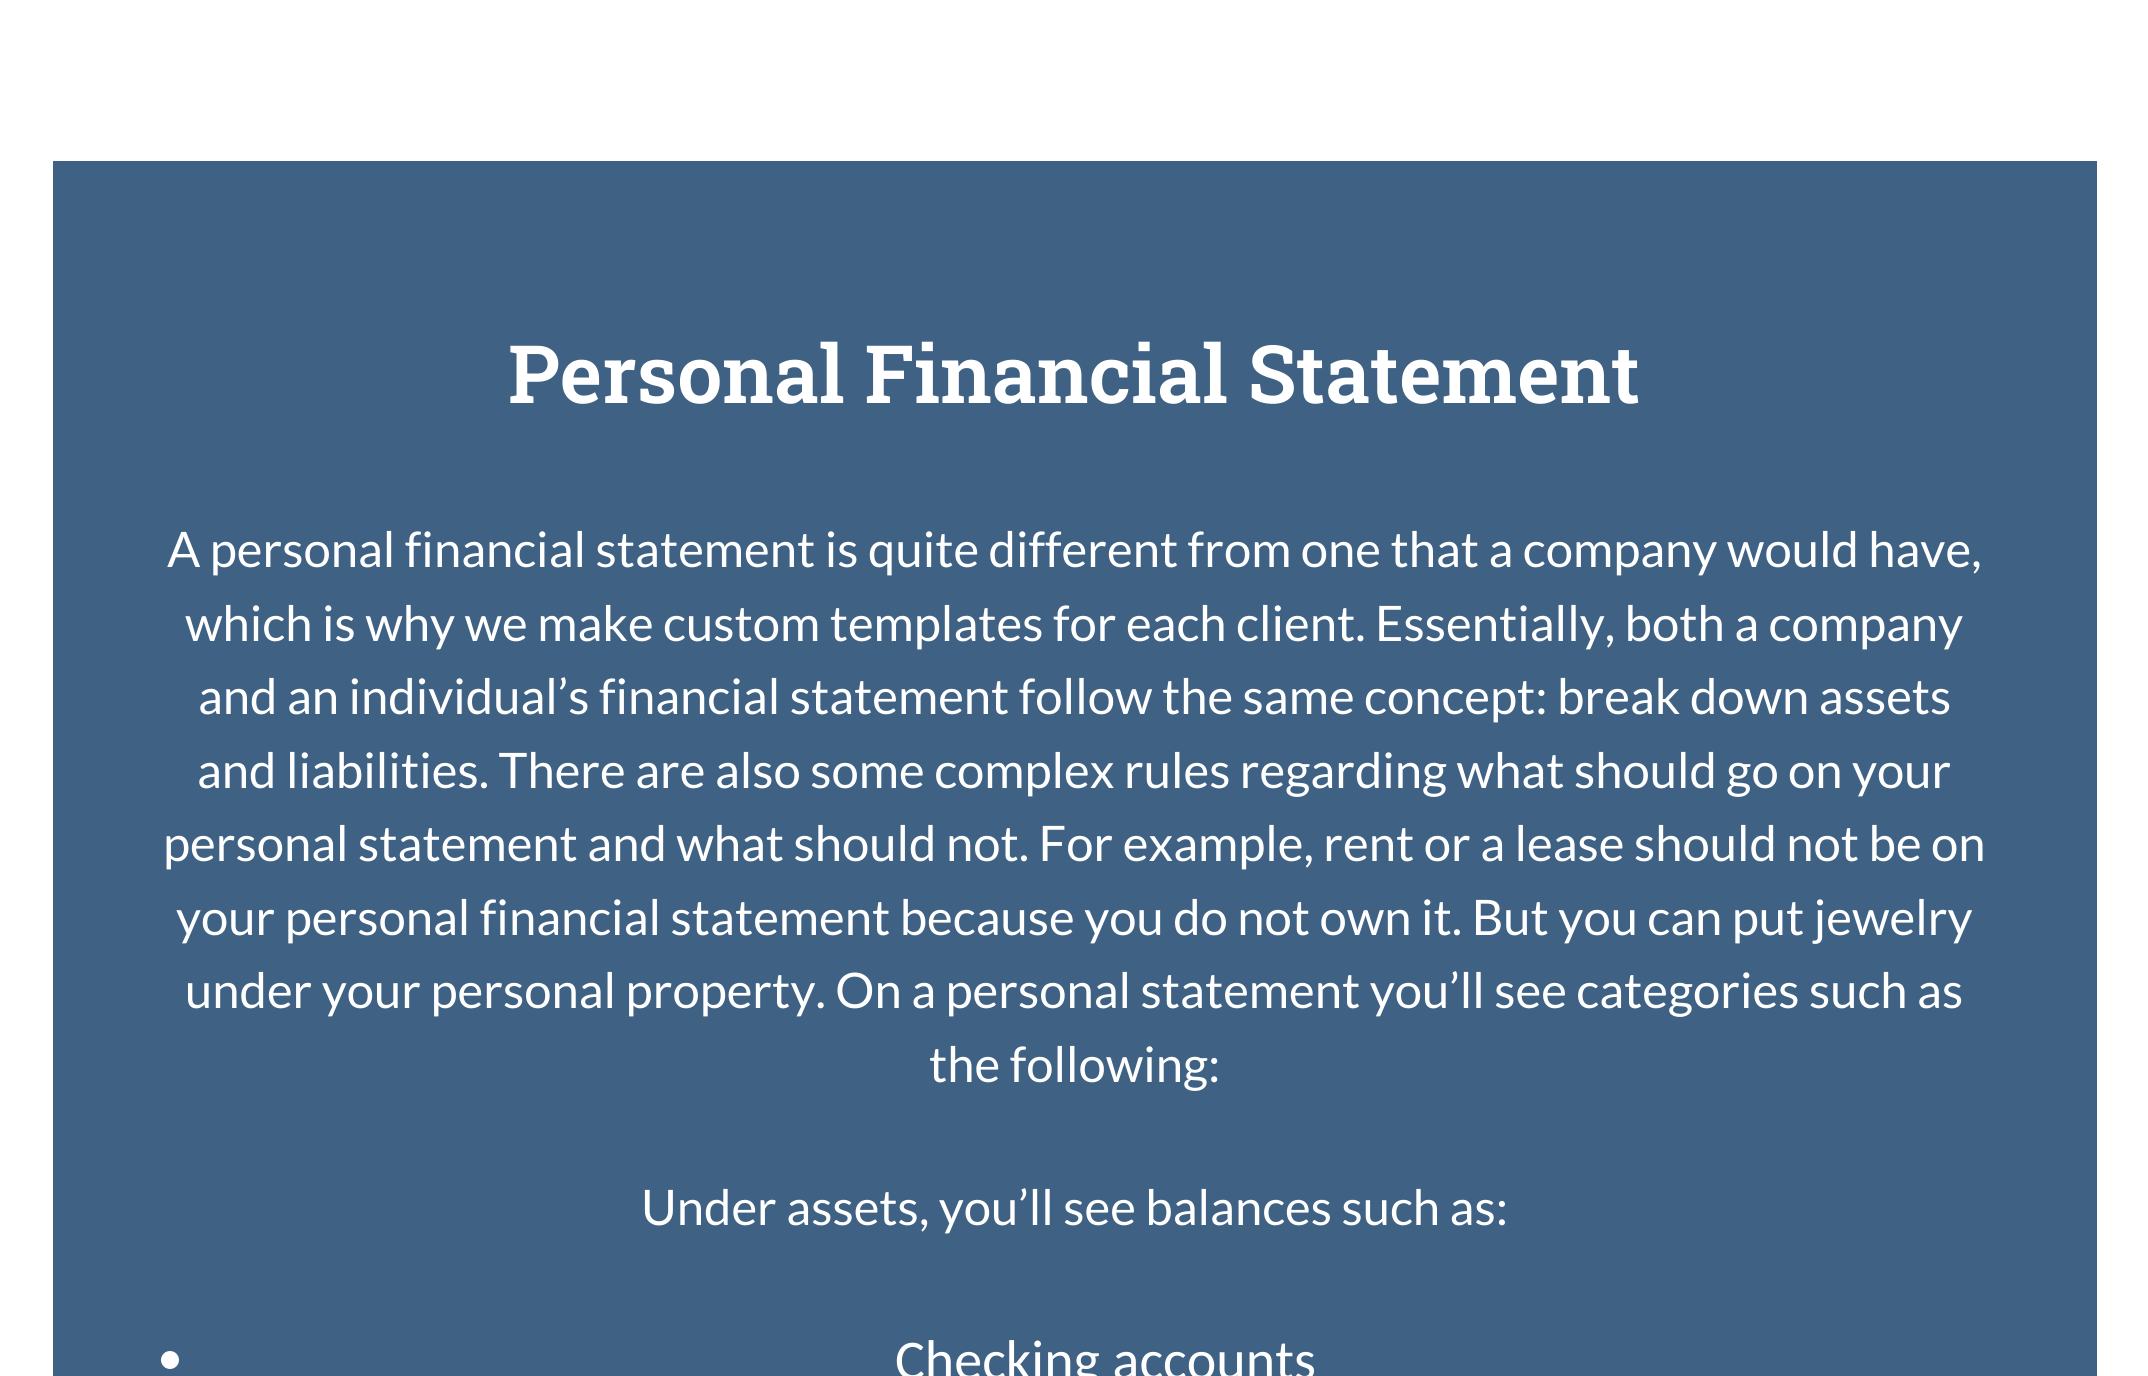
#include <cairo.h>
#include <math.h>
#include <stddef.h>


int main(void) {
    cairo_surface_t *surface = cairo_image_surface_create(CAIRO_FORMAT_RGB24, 2148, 1376);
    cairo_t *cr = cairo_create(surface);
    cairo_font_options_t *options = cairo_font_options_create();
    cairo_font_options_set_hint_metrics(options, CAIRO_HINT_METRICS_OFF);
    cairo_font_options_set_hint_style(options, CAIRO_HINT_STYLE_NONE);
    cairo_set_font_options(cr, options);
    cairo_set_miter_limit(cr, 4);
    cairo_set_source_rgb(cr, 1, 1, 1);
    cairo_paint(cr);
    cairo_set_source_rgb(cr, 0.247, 0.38, 0.514);
    cairo_rectangle(cr, 53, 161, 2044, 1215);
    cairo_fill(cr);
    cairo_select_font_face(cr, "Roboto Slab SemiBold", CAIRO_FONT_SLANT_NORMAL, CAIRO_FONT_WEIGHT_NORMAL);
    cairo_set_font_size(cr, 80.5);
    cairo_set_source_rgb(cr, 1, 1, 1);
    cairo_move_to(cr, 508, 403);
    cairo_show_text(cr, "Personal Financial Statement");
    cairo_select_font_face(cr, "Lato", CAIRO_FONT_SLANT_NORMAL, CAIRO_FONT_WEIGHT_NORMAL);
    cairo_set_font_size(cr, 49);
    cairo_move_to(cr, 167, 567);
    cairo_show_text(cr, "A personal financial statement is quite different from one that a company would have,");
    cairo_move_to(cr, 185, 641);
    cairo_show_text(cr, "which is why we make custom templates for each client. Essentially, both a company");
    cairo_move_to(cr, 198, 714);
    cairo_show_text(cr, "and an individual’s financial statement follow the same concept: break down assets");
    cairo_move_to(cr, 197, 788);
    cairo_show_text(cr, "and liabilities. There are also some complex rules regarding what should go on your");
    cairo_move_to(cr, 163, 861);
    cairo_show_text(cr, "personal statement and what should not. For example, rent or a lease should not be on");
    cairo_move_to(cr, 176, 935);
    cairo_show_text(cr, "your personal financial statement because you do not own it. But you can put jewelry");
    cairo_move_to(cr, 185, 1008);
    cairo_show_text(cr, "under your personal property. On a personal statement you’ll see categories such as");
    cairo_move_to(cr, 929, 1082);
    cairo_show_text(cr, "the following:");
    cairo_move_to(cr, 641, 1225);
    cairo_show_text(cr, "Under assets, you’ll see balances such as:");
    cairo_new_path(cr);
    cairo_arc(cr, 170, 1360, 9, 0, 2 * M_PI);
    cairo_fill(cr);
    cairo_select_font_face(cr, "Carlito", CAIRO_FONT_SLANT_NORMAL, CAIRO_FONT_WEIGHT_NORMAL);
    cairo_set_font_size(cr, 56);
    cairo_move_to(cr, 895, 1379);
    cairo_show_text(cr, "Checking accounts");
    cairo_surface_write_to_png(surface, "page.png");
    cairo_font_options_destroy(options);
    cairo_destroy(cr);
    cairo_surface_destroy(surface);
    return 0;
}
